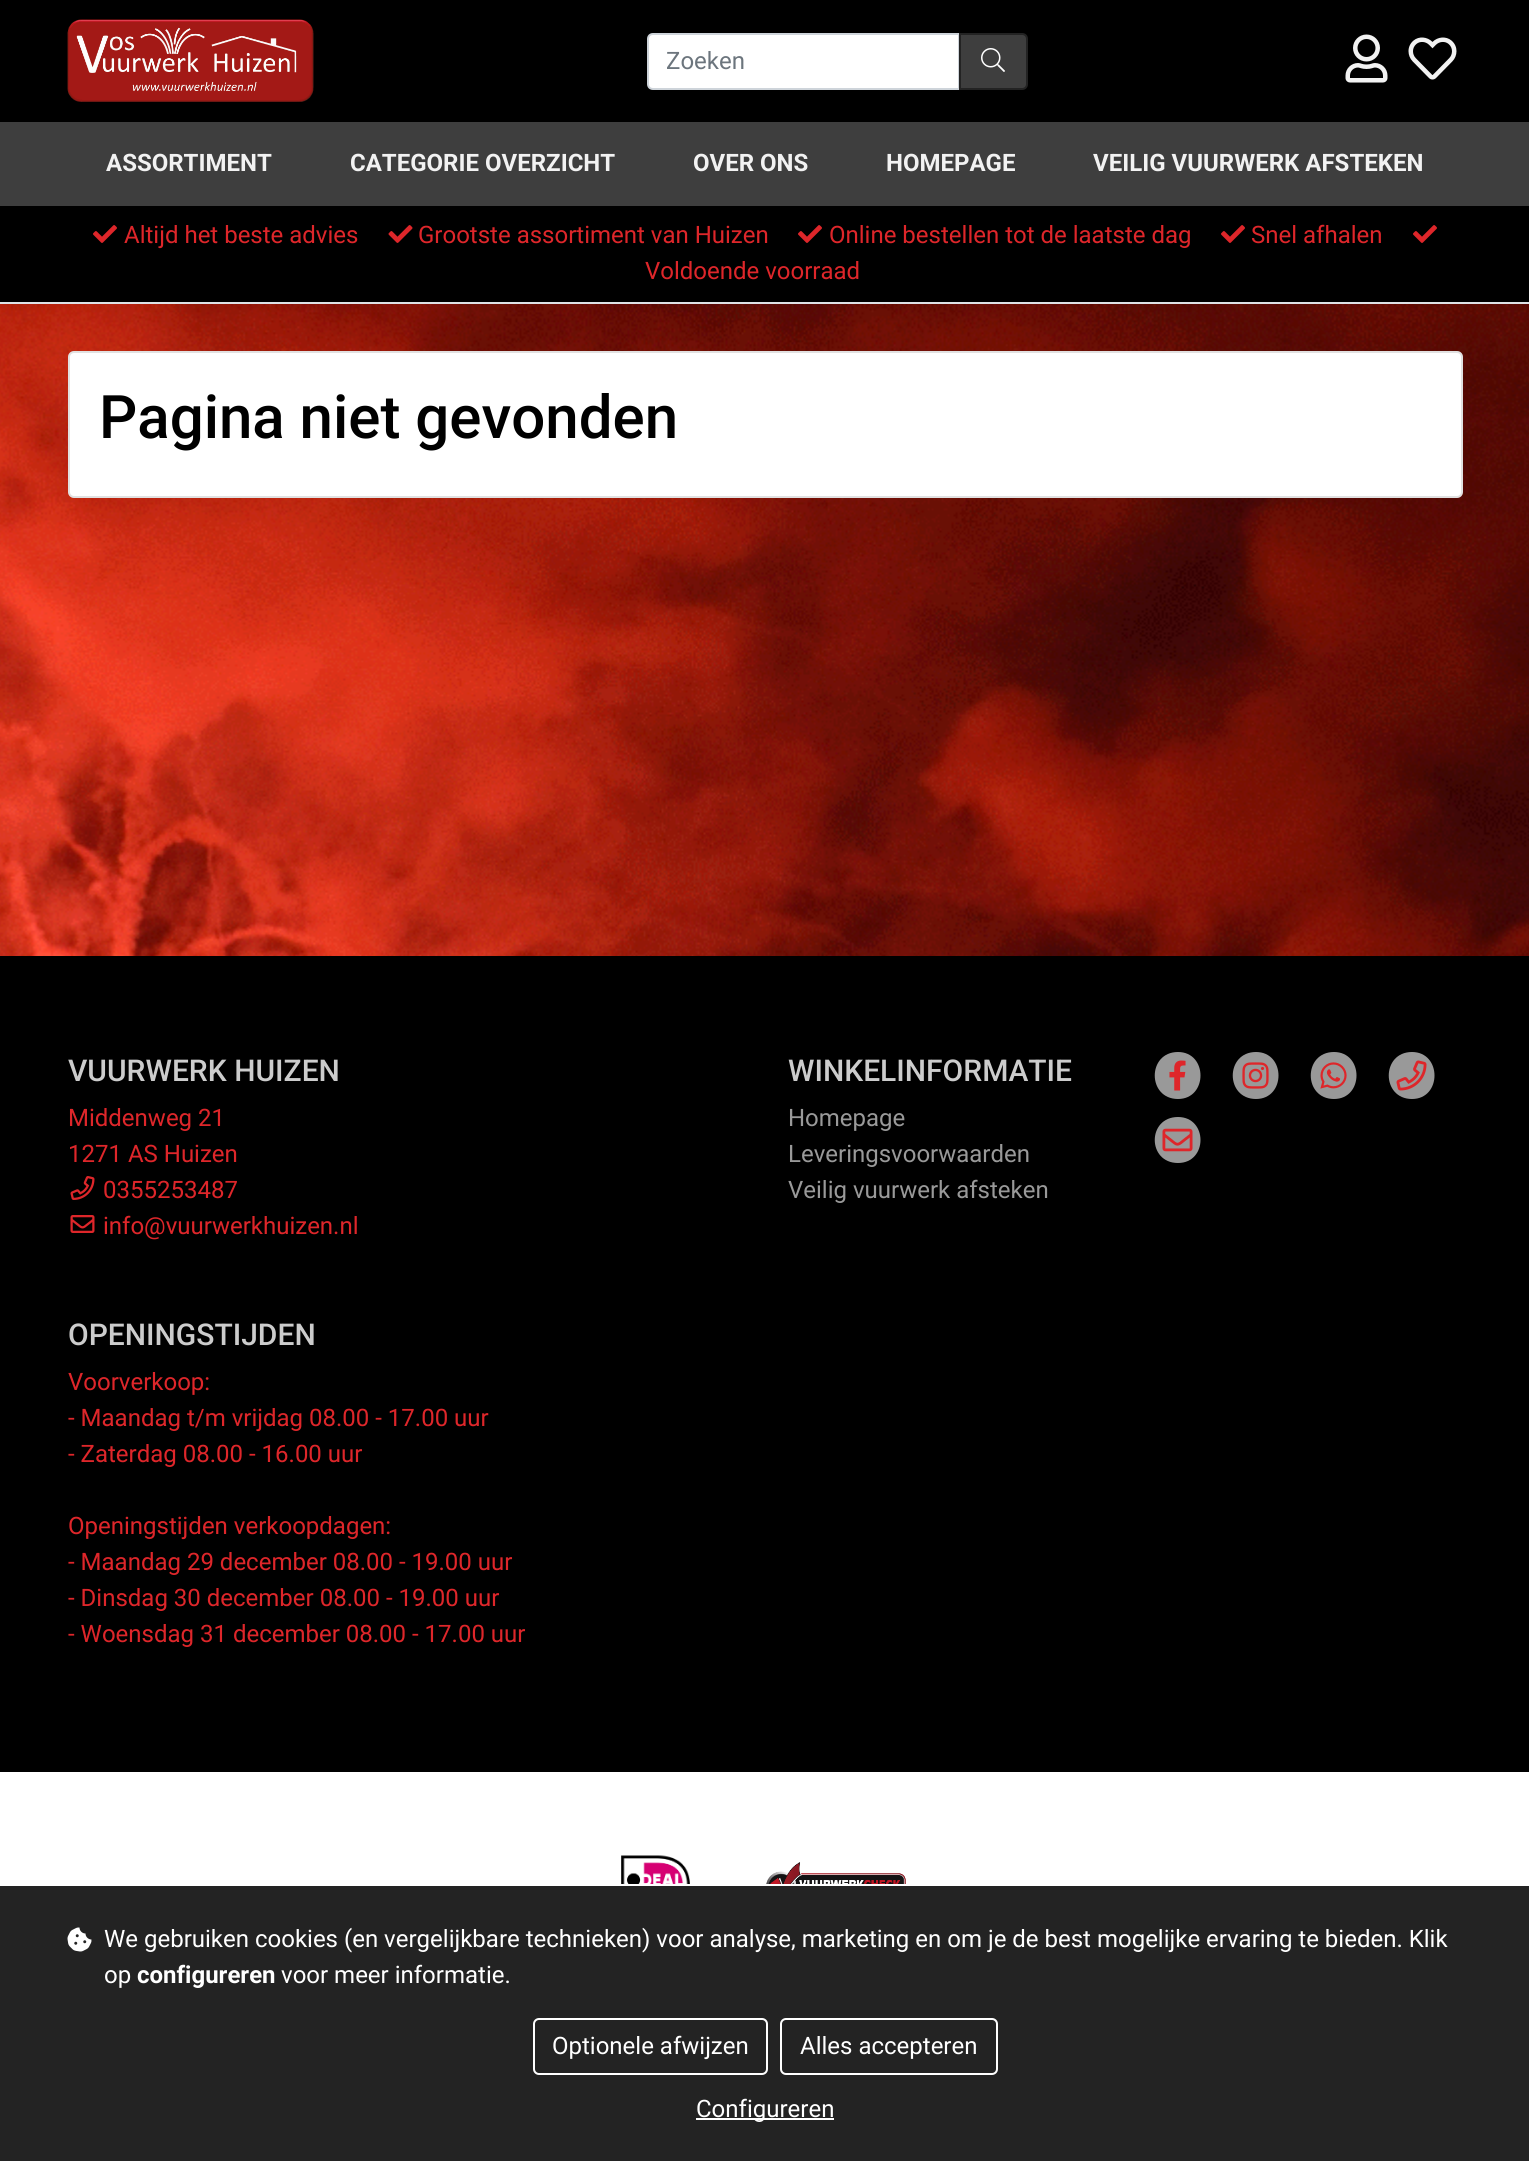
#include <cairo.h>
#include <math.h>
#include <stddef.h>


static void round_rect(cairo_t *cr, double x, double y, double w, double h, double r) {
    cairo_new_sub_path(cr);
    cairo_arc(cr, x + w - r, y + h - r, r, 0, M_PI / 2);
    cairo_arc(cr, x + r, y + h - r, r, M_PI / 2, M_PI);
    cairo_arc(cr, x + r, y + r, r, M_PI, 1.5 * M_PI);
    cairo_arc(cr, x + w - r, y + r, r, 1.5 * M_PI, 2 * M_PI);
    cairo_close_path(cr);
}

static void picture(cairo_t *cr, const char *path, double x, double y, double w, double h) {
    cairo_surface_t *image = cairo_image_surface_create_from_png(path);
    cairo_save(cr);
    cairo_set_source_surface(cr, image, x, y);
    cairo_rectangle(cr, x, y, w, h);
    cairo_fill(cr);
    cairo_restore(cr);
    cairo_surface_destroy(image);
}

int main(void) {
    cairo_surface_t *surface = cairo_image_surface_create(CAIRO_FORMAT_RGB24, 1529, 2161);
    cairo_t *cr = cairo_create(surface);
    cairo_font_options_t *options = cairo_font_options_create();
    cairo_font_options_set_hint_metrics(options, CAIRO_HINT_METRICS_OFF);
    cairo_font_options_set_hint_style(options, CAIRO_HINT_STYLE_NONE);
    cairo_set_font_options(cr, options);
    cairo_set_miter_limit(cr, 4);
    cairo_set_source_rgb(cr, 1, 1, 1);
    cairo_paint(cr);
    picture(cr, "img1.png", 0, 304, 1529, 652);
    cairo_set_source_rgb(cr, 0, 0, 0);
    cairo_rectangle(cr, 0, 0, 1529, 122);
    cairo_fill(cr);
    picture(cr, "img2.png", 67, 19, 247, 83);
    cairo_set_source_rgb(cr, 1, 1, 1);
    cairo_new_path(cr);
    cairo_move_to(cr, 653, 34);
    cairo_line_to(cr, 959, 34);
    cairo_line_to(cr, 959, 89);
    cairo_line_to(cr, 653, 89);
    cairo_curve_to(cr, 650, 89, 648, 87, 648, 84);
    cairo_line_to(cr, 648, 39);
    cairo_curve_to(cr, 648, 36, 650, 34, 653, 34);
    cairo_close_path(cr);
    cairo_fill_preserve(cr);
    cairo_set_source_rgb(cr, 0.808, 0.831, 0.855);
    cairo_stroke(cr);
    cairo_select_font_face(cr, "Roboto", CAIRO_FONT_SLANT_NORMAL, CAIRO_FONT_WEIGHT_NORMAL);
    cairo_set_font_size(cr, 24);
    cairo_set_source_rgb(cr, 0.424, 0.459, 0.49);
    cairo_move_to(cr, 666, 69);
    cairo_show_text(cr, "Zoeken");
    cairo_set_source_rgb(cr, 0.243, 0.243, 0.243);
    cairo_new_path(cr);
    cairo_move_to(cr, 960, 34);
    cairo_line_to(cr, 1022, 34);
    cairo_curve_to(cr, 1025, 34, 1027, 36, 1027, 39);
    cairo_line_to(cr, 1027, 84);
    cairo_curve_to(cr, 1027, 87, 1025, 89, 1022, 89);
    cairo_line_to(cr, 960, 89);
    cairo_close_path(cr);
    cairo_fill_preserve(cr);
    cairo_set_source_rgb(cr, 0.137, 0.137, 0.137);
    cairo_stroke(cr);
    picture(cr, "img3.png", 981, 48, 24, 24);
    picture(cr, "img4.png", 1345, 34, 43, 49);
    picture(cr, "img5.png", 1408, 37, 49, 43);
    cairo_set_source_rgb(cr, 0.243, 0.243, 0.243);
    cairo_rectangle(cr, 0, 122, 1529, 84);
    cairo_fill(cr);
    cairo_select_font_face(cr, "Roboto", CAIRO_FONT_SLANT_NORMAL, CAIRO_FONT_WEIGHT_BOLD);
    cairo_set_source_rgb(cr, 0.949, 0.949, 0.949);
    cairo_move_to(cr, 106, 171);
    cairo_show_text(cr, "ASSORTIMENT");
    cairo_move_to(cr, 350, 171);
    cairo_show_text(cr, "CATEGORIE OVERZICHT");
    cairo_move_to(cr, 693, 171);
    cairo_show_text(cr, "OVER ONS");
    cairo_move_to(cr, 886, 171);
    cairo_show_text(cr, "HOMEPAGE");
    cairo_move_to(cr, 1093, 171);
    cairo_show_text(cr, "VEILIG VUURWERK AFSTEKEN");
    cairo_set_source_rgb(cr, 0, 0, 0);
    cairo_rectangle(cr, 0, 206, 1529, 96);
    cairo_fill(cr);
    cairo_set_source_rgb(cr, 0.871, 0.886, 0.902);
    cairo_rectangle(cr, 0, 302, 1529, 2);
    cairo_fill(cr);
    picture(cr, "img6.png", 93, 225, 24, 18);
    cairo_select_font_face(cr, "Roboto", CAIRO_FONT_SLANT_NORMAL, CAIRO_FONT_WEIGHT_NORMAL);
    cairo_set_source_rgb(cr, 0.871, 0.149, 0.165);
    cairo_move_to(cr, 124, 243);
    cairo_show_text(cr, "Altijd het beste advies");
    picture(cr, "img7.png", 388, 225, 25, 18);
    cairo_move_to(cr, 418, 243);
    cairo_show_text(cr, "Grootste assortiment van Huizen");
    picture(cr, "img6.png", 798, 225, 24, 18);
    cairo_move_to(cr, 829, 243);
    cairo_show_text(cr, "Online bestellen tot de laatste dag");
    picture(cr, "img6.png", 1221, 225, 24, 18);
    cairo_move_to(cr, 1251, 243);
    cairo_show_text(cr, "Snel afhalen");
    picture(cr, "img6.png", 1413, 225, 24, 18);
    cairo_move_to(cr, 645, 279);
    cairo_show_text(cr, "Voldoende voorraad");
    cairo_set_source_rgb(cr, 1, 1, 1);
    round_rect(cr, 68, 351, 1395, 147, 6);
    cairo_fill(cr);
    round_rect(cr, 69, 352, 1393, 145, 5);
    cairo_set_source_rgba(cr, 0, 0, 0, 0.12);
    cairo_stroke(cr);
    cairo_select_font_face(cr, "Roboto Medium", CAIRO_FONT_SLANT_NORMAL, CAIRO_FONT_WEIGHT_NORMAL);
    cairo_set_font_size(cr, 60);
    cairo_set_source_rgb(cr, 0, 0, 0);
    cairo_move_to(cr, 99, 438);
    cairo_show_text(cr, "Pagina niet gevonden");
    cairo_rectangle(cr, 0, 956, 1529, 816);
    cairo_fill(cr);
    cairo_set_font_size(cr, 30);
    cairo_set_source_rgb(cr, 0.8, 0.8, 0.8);
    cairo_move_to(cr, 68, 1081);
    cairo_show_text(cr, "VUURWERK HUIZEN");
    cairo_select_font_face(cr, "Roboto", CAIRO_FONT_SLANT_NORMAL, CAIRO_FONT_WEIGHT_NORMAL);
    cairo_set_font_size(cr, 24);
    cairo_set_source_rgb(cr, 0.871, 0.149, 0.165);
    cairo_move_to(cr, 68, 1126);
    cairo_show_text(cr, "Middenweg 21");
    cairo_move_to(cr, 68, 1162);
    cairo_show_text(cr, "1271 AS Huizen");
    picture(cr, "img8.png", 70, 1176, 25, 24);
    cairo_move_to(cr, 103, 1198);
    cairo_show_text(cr, "0355253487");
    picture(cr, "img9.png", 70, 1215, 25, 18);
    cairo_move_to(cr, 103, 1234);
    cairo_show_text(cr, "info@vuurwerkhuizen.nl");
    cairo_select_font_face(cr, "Roboto Medium", CAIRO_FONT_SLANT_NORMAL, CAIRO_FONT_WEIGHT_NORMAL);
    cairo_set_font_size(cr, 30);
    cairo_set_source_rgb(cr, 0.8, 0.8, 0.8);
    cairo_move_to(cr, 68, 1345);
    cairo_show_text(cr, "OPENINGSTIJDEN");
    cairo_select_font_face(cr, "Roboto", CAIRO_FONT_SLANT_NORMAL, CAIRO_FONT_WEIGHT_NORMAL);
    cairo_set_font_size(cr, 24);
    cairo_set_source_rgb(cr, 0.871, 0.149, 0.165);
    cairo_move_to(cr, 68, 1390);
    cairo_show_text(cr, "Voorverkoop:");
    cairo_move_to(cr, 68, 1426);
    cairo_show_text(cr, "- Maandag t/m vrijdag 08.00 - 17.00 uur");
    cairo_move_to(cr, 68, 1462);
    cairo_show_text(cr, "- Zaterdag 08.00 - 16.00 uur");
    cairo_move_to(cr, 68, 1534);
    cairo_show_text(cr, "Openingstijden verkoopdagen:");
    cairo_move_to(cr, 68, 1570);
    cairo_show_text(cr, "- Maandag 29 december 08.00 - 19.00 uur");
    cairo_move_to(cr, 68, 1606);
    cairo_show_text(cr, "- Dinsdag 30 december 08.00 - 19.00 uur");
    cairo_move_to(cr, 68, 1642);
    cairo_show_text(cr, "- Woensdag 31 december 08.00 - 17.00 uur");
    cairo_select_font_face(cr, "Roboto Medium", CAIRO_FONT_SLANT_NORMAL, CAIRO_FONT_WEIGHT_NORMAL);
    cairo_set_font_size(cr, 30);
    cairo_set_source_rgb(cr, 0.8, 0.8, 0.8);
    cairo_move_to(cr, 788, 1081);
    cairo_show_text(cr, "WINKELINFORMATIE");
    cairo_select_font_face(cr, "Roboto", CAIRO_FONT_SLANT_NORMAL, CAIRO_FONT_WEIGHT_NORMAL);
    cairo_set_font_size(cr, 24);
    cairo_set_source_rgb(cr, 0.6, 0.6, 0.6);
    cairo_move_to(cr, 788, 1126);
    cairo_show_text(cr, "Homepage");
    cairo_move_to(cr, 788, 1162);
    cairo_show_text(cr, "Leveringsvoorwaarden");
    cairo_move_to(cr, 788, 1198);
    cairo_show_text(cr, "Veilig vuurwerk afsteken");
    cairo_new_path(cr);
    cairo_move_to(cr, 1178, 1052);
    cairo_curve_to(cr, 1147, 1052, 1147, 1099, 1178, 1099);
    cairo_curve_to(cr, 1208, 1099, 1208, 1052, 1178, 1052);
    cairo_close_path(cr);
    cairo_fill(cr);
    picture(cr, "img10.png", 1169, 1060, 17, 31);
    cairo_new_path(cr);
    cairo_move_to(cr, 1256, 1052);
    cairo_curve_to(cr, 1225, 1052, 1225, 1099, 1256, 1099);
    cairo_curve_to(cr, 1286, 1099, 1286, 1052, 1256, 1052);
    cairo_close_path(cr);
    cairo_fill(cr);
    picture(cr, "img11.png", 1242, 1062, 27, 27);
    cairo_new_path(cr);
    cairo_move_to(cr, 1334, 1052);
    cairo_curve_to(cr, 1303, 1052, 1303, 1099, 1334, 1099);
    cairo_curve_to(cr, 1364, 1099, 1364, 1052, 1334, 1052);
    cairo_close_path(cr);
    cairo_fill(cr);
    picture(cr, "img12.png", 1320, 1062, 27, 27);
    cairo_new_path(cr);
    cairo_move_to(cr, 1412, 1052);
    cairo_curve_to(cr, 1381, 1052, 1381, 1099, 1412, 1099);
    cairo_curve_to(cr, 1442, 1099, 1442, 1052, 1412, 1052);
    cairo_close_path(cr);
    cairo_fill(cr);
    picture(cr, "img13.png", 1396, 1060, 31, 31);
    cairo_new_path(cr);
    cairo_move_to(cr, 1178, 1117);
    cairo_curve_to(cr, 1147, 1117, 1147, 1163, 1178, 1163);
    cairo_curve_to(cr, 1208, 1163, 1208, 1117, 1178, 1117);
    cairo_close_path(cr);
    cairo_fill(cr);
    picture(cr, "img14.png", 1162, 1128, 31, 24);
    picture(cr, "img15.png", 621, 1855, 69, 29);
    picture(cr, "img16.png", 766, 1862, 140, 22);
    cairo_set_source_rgb(cr, 0.137, 0.137, 0.137);
    cairo_rectangle(cr, 0, 1886, 1529, 275);
    cairo_fill(cr);
    picture(cr, "img17.png", 67, 1927, 25, 25);
    cairo_set_source_rgb(cr, 1, 1, 1);
    cairo_move_to(cr, 104, 1947);
    cairo_show_text(cr, "We gebruiken cookies (en vergelijkbare technieken) voor analyse, marketing en om je de best mogelijke ervaring te bieden. Klik");
    cairo_move_to(cr, 104, 1983);
    cairo_show_text(cr, "op");
    cairo_select_font_face(cr, "Roboto", CAIRO_FONT_SLANT_NORMAL, CAIRO_FONT_WEIGHT_BOLD);
    cairo_move_to(cr, 137, 1983);
    cairo_show_text(cr, "configureren");
    cairo_select_font_face(cr, "Roboto", CAIRO_FONT_SLANT_NORMAL, CAIRO_FONT_WEIGHT_NORMAL);
    cairo_move_to(cr, 281, 1983);
    cairo_show_text(cr, "voor meer informatie.");
    round_rect(cr, 534, 2019, 233, 55, 5);
    cairo_stroke(cr);
    cairo_move_to(cr, 552, 2054);
    cairo_show_text(cr, "Optionele afwijzen");
    round_rect(cr, 781, 2019, 216, 55, 5);
    cairo_stroke(cr);
    cairo_move_to(cr, 800, 2054);
    cairo_show_text(cr, "Alles accepteren");
    cairo_rectangle(cr, 696, 2118, 138, 2);
    cairo_fill(cr);
    cairo_move_to(cr, 696, 2117);
    cairo_show_text(cr, "Configureren");
    cairo_surface_write_to_png(surface, "page.png");
    cairo_font_options_destroy(options);
    cairo_destroy(cr);
    cairo_surface_destroy(surface);
    return 0;
}
